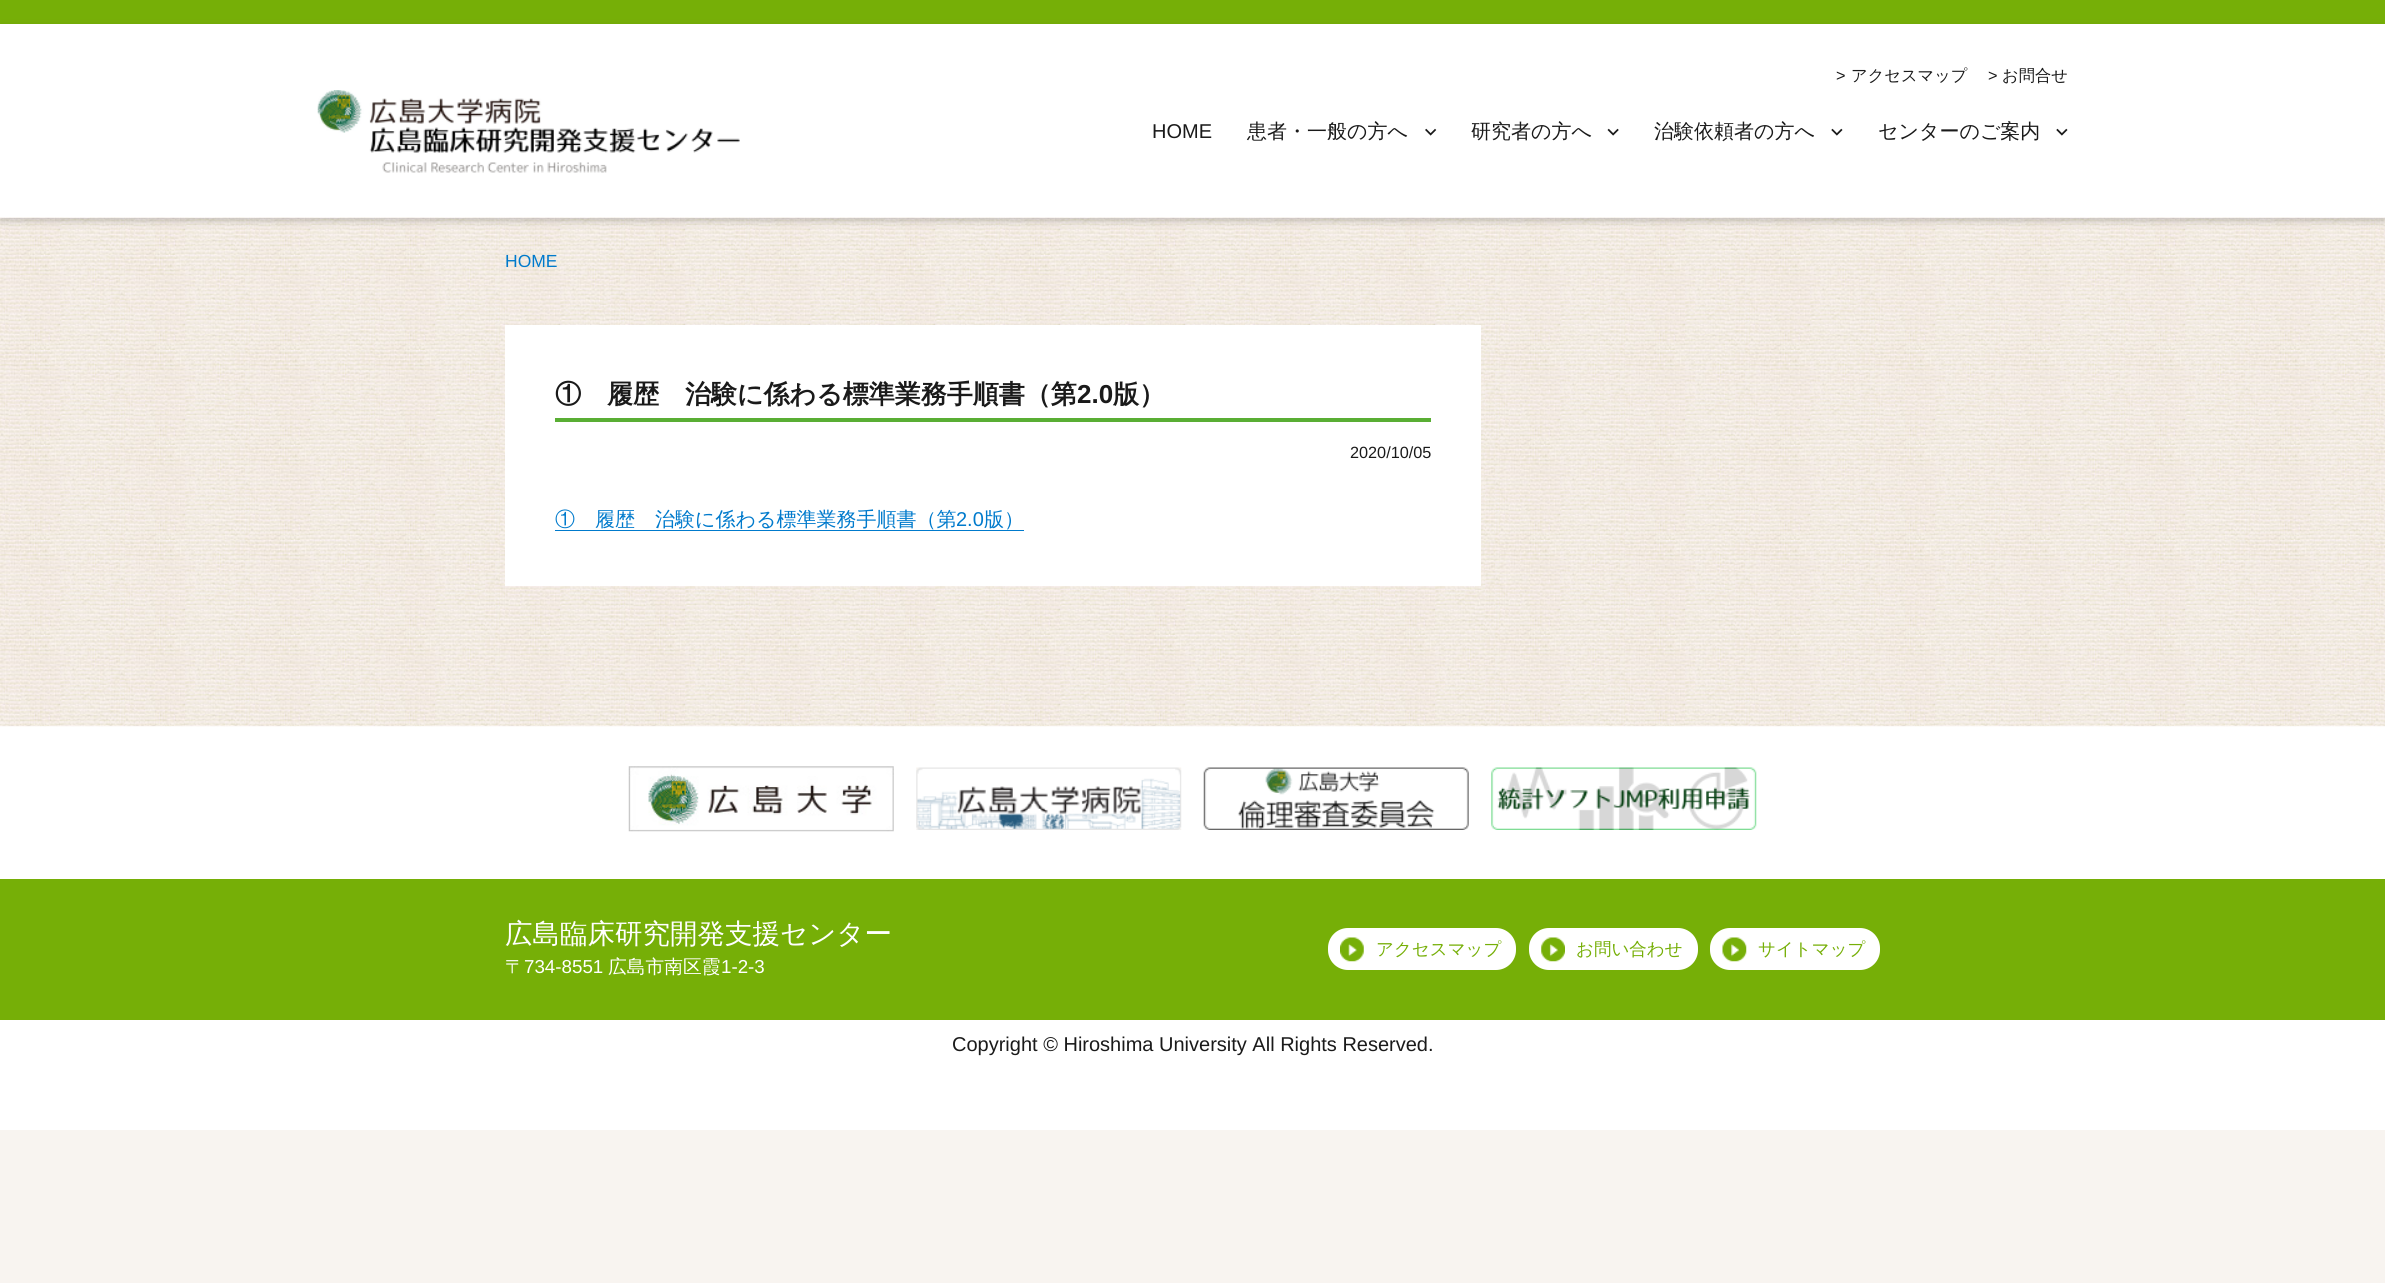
#include <cairo.h>
#include <math.h>
#include <stddef.h>


static void round_rect(cairo_t *cr, double x, double y, double w, double h, double r) {
    cairo_new_sub_path(cr);
    cairo_arc(cr, x + w - r, y + h - r, r, 0, M_PI / 2);
    cairo_arc(cr, x + r, y + h - r, r, M_PI / 2, M_PI);
    cairo_arc(cr, x + r, y + r, r, M_PI, 1.5 * M_PI);
    cairo_arc(cr, x + w - r, y + r, r, 1.5 * M_PI, 2 * M_PI);
    cairo_close_path(cr);
}

static void shadow(cairo_t *cr, double x, double y, double w, double h, double r, double blur, double alpha) {
    cairo_push_group_with_content(cr, CAIRO_CONTENT_ALPHA);
    cairo_set_operator(cr, CAIRO_OPERATOR_SOURCE);
    for (int i = 15; i >= -15 && fmin(w, h) + blur * i / 3 > 0; i -= 2) {
        double e = blur * i / 6;
        cairo_set_source_rgba(cr, 0, 0, 0, alpha * erfc((i - 1) / 8.5) / 2);
        round_rect(cr, x - e, y - e, w + 2 * e, h + 2 * e, fmax(0, fmin(r + e + blur * .6, fmin(w, h) / 2 + e)));
        cairo_fill(cr);
    }
    cairo_pattern_t *soft = cairo_pop_group(cr);
    cairo_mask(cr, soft);
    cairo_pattern_destroy(soft);
}

static void picture(cairo_t *cr, const char *path, double x, double y, double w, double h) {
    cairo_surface_t *image = cairo_image_surface_create_from_png(path);
    cairo_save(cr);
    cairo_set_source_surface(cr, image, x, y);
    cairo_rectangle(cr, x, y, w, h);
    cairo_fill(cr);
    cairo_restore(cr);
    cairo_surface_destroy(image);
}

int main(void) {
    cairo_surface_t *surface = cairo_image_surface_create(CAIRO_FORMAT_RGB24, 2385, 1283);
    cairo_t *cr = cairo_create(surface);
    cairo_font_options_t *options = cairo_font_options_create();
    cairo_font_options_set_hint_metrics(options, CAIRO_HINT_METRICS_OFF);
    cairo_font_options_set_hint_style(options, CAIRO_HINT_STYLE_NONE);
    cairo_set_font_options(cr, options);
    cairo_set_miter_limit(cr, 4);
    cairo_set_source_rgb(cr, 0.969, 0.957, 0.941);
    cairo_paint(cr);
    cairo_set_source_rgb(cr, 1, 1, 1);
    cairo_rectangle(cr, 0, 24, 2385, 1106);
    cairo_fill(cr);
    cairo_set_source_rgb(cr, 0.463, 0.686, 0.031);
    cairo_rectangle(cr, 0, 0, 2385, 24);
    cairo_fill(cr);
    picture(cr, "img5.png", 0, 217, 2385, 510);
    cairo_save(cr);
    cairo_set_fill_rule(cr, CAIRO_FILL_RULE_EVEN_ODD);
    cairo_new_path(cr);
    cairo_move_to(cr, 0, 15);
    cairo_line_to(cr, 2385, 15);
    cairo_line_to(cr, 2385, 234);
    cairo_line_to(cr, 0, 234);
    cairo_close_path(cr);
    cairo_move_to(cr, 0, 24);
    cairo_line_to(cr, 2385, 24);
    cairo_line_to(cr, 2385, 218);
    cairo_line_to(cr, 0, 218);
    cairo_close_path(cr);
    cairo_clip(cr);
    cairo_set_source_rgb(cr, 0, 0, 0);
    shadow(cr, 0, 28, 2385, 193, 0, 4, 0.2);
    cairo_restore(cr);
    cairo_select_font_face(cr, "Liberation Sans", CAIRO_FONT_SLANT_NORMAL, CAIRO_FONT_WEIGHT_NORMAL);
    cairo_set_font_size(cr, 16.25);
    cairo_set_source_rgb(cr, 0.102, 0.102, 0.102);
    cairo_move_to(cr, 1836, 81);
    cairo_show_text(cr, ">");
    cairo_select_font_face(cr, "WenQuanYi Zen Hei Medium", CAIRO_FONT_SLANT_NORMAL, CAIRO_FONT_WEIGHT_NORMAL);
    cairo_move_to(cr, 1851, 81);
    cairo_show_text(cr, "アクセスマップ");
    cairo_select_font_face(cr, "Liberation Sans", CAIRO_FONT_SLANT_NORMAL, CAIRO_FONT_WEIGHT_NORMAL);
    cairo_move_to(cr, 1988, 81);
    cairo_show_text(cr, ">");
    cairo_select_font_face(cr, "WenQuanYi Zen Hei Medium", CAIRO_FONT_SLANT_NORMAL, CAIRO_FONT_WEIGHT_NORMAL);
    cairo_move_to(cr, 2002, 81);
    cairo_show_text(cr, "お問合せ");
    picture(cr, "img1.png", 317, 90, 423, 83);
    cairo_select_font_face(cr, "Liberation Sans", CAIRO_FONT_SLANT_NORMAL, CAIRO_FONT_WEIGHT_NORMAL);
    cairo_set_font_size(cr, 20);
    cairo_move_to(cr, 1152, 138);
    cairo_show_text(cr, "HOME");
    cairo_select_font_face(cr, "WenQuanYi Zen Hei Medium", CAIRO_FONT_SLANT_NORMAL, CAIRO_FONT_WEIGHT_NORMAL);
    cairo_move_to(cr, 1247, 138);
    cairo_show_text(cr, "患者・一般の方へ");
    picture(cr, "img2.png", 1425, 128, 12, 8);
    cairo_move_to(cr, 1471, 138);
    cairo_show_text(cr, "研究者の方へ");
    picture(cr, "img3.png", 1607, 128, 12, 8);
    cairo_move_to(cr, 1654, 138);
    cairo_show_text(cr, "治験依頼者の方へ");
    picture(cr, "img4.png", 1831, 128, 12, 8);
    cairo_move_to(cr, 1878, 138);
    cairo_show_text(cr, "センターのご案内");
    picture(cr, "img4.png", 2056, 128, 12, 8);
    cairo_select_font_face(cr, "Liberation Sans", CAIRO_FONT_SLANT_NORMAL, CAIRO_FONT_WEIGHT_NORMAL);
    cairo_set_font_size(cr, 17.5);
    cairo_set_source_rgb(cr, 0, 0.478, 0.8);
    cairo_move_to(cr, 505, 267);
    cairo_show_text(cr, "HOME");
    cairo_set_source_rgb(cr, 1, 1, 1);
    cairo_rectangle(cr, 505, 325, 976, 261);
    cairo_fill(cr);
    cairo_set_source_rgb(cr, 0.349, 0.682, 0.204);
    cairo_rectangle(cr, 555, 418, 876, 4);
    cairo_fill(cr);
    cairo_select_font_face(cr, "WenQuanYi Zen Hei", CAIRO_FONT_SLANT_NORMAL, CAIRO_FONT_WEIGHT_BOLD);
    cairo_set_font_size(cr, 26);
    cairo_set_source_rgb(cr, 0.102, 0.102, 0.102);
    cairo_move_to(cr, 555, 403);
    cairo_show_text(cr, "①　履歴　治験に係わる標準業務手順書（第");
    cairo_select_font_face(cr, "Liberation Sans", CAIRO_FONT_SLANT_NORMAL, CAIRO_FONT_WEIGHT_BOLD);
    cairo_move_to(cr, 1077, 403);
    cairo_show_text(cr, "2.0");
    cairo_select_font_face(cr, "WenQuanYi Zen Hei", CAIRO_FONT_SLANT_NORMAL, CAIRO_FONT_WEIGHT_BOLD);
    cairo_move_to(cr, 1113, 403);
    cairo_show_text(cr, "版）");
    cairo_select_font_face(cr, "Liberation Sans", CAIRO_FONT_SLANT_NORMAL, CAIRO_FONT_WEIGHT_NORMAL);
    cairo_set_font_size(cr, 16.25);
    cairo_move_to(cr, 1350, 458);
    cairo_show_text(cr, "2020/10/05");
    cairo_select_font_face(cr, "WenQuanYi Zen Hei Medium", CAIRO_FONT_SLANT_NORMAL, CAIRO_FONT_WEIGHT_NORMAL);
    cairo_set_font_size(cr, 20);
    cairo_set_source_rgb(cr, 0, 0.478, 0.8);
    cairo_move_to(cr, 555, 526);
    cairo_show_text(cr, "①　履歴　治験に係わる標準業務手順書（第");
    cairo_select_font_face(cr, "Liberation Sans", CAIRO_FONT_SLANT_NORMAL, CAIRO_FONT_WEIGHT_NORMAL);
    cairo_move_to(cr, 956, 526);
    cairo_show_text(cr, "2.0");
    cairo_select_font_face(cr, "WenQuanYi Zen Hei Medium", CAIRO_FONT_SLANT_NORMAL, CAIRO_FONT_WEIGHT_NORMAL);
    cairo_move_to(cr, 984, 526);
    cairo_show_text(cr, "版）");
    cairo_new_path(cr);
    cairo_move_to(cr, 555, 530);
    cairo_line_to(cr, 555, 531);
    cairo_line_to(cr, 1024, 531);
    cairo_line_to(cr, 1024, 510);
    cairo_line_to(cr, 1024, 530);
    cairo_close_path(cr);
    cairo_fill(cr);
    picture(cr, "img6.png", 628, 766, 266, 66);
    picture(cr, "img7.png", 916, 767, 266, 63);
    picture(cr, "img8.png", 1203, 767, 266, 63);
    picture(cr, "img9.png", 1491, 767, 266, 63);
    cairo_set_source_rgb(cr, 0.463, 0.686, 0.031);
    cairo_rectangle(cr, 0, 879, 2385, 141);
    cairo_fill(cr);
    cairo_set_font_size(cr, 27.5);
    cairo_set_source_rgb(cr, 1, 1, 1);
    cairo_move_to(cr, 505, 943);
    cairo_show_text(cr, "広島臨床研究開発支援センター");
    cairo_set_font_size(cr, 18.75);
    cairo_move_to(cr, 505, 973);
    cairo_show_text(cr, "〒");
    cairo_select_font_face(cr, "Liberation Sans", CAIRO_FONT_SLANT_NORMAL, CAIRO_FONT_WEIGHT_NORMAL);
    cairo_move_to(cr, 524, 973);
    cairo_show_text(cr, "734-8551");
    cairo_select_font_face(cr, "WenQuanYi Zen Hei Medium", CAIRO_FONT_SLANT_NORMAL, CAIRO_FONT_WEIGHT_NORMAL);
    cairo_move_to(cr, 608, 973);
    cairo_show_text(cr, "広島市南区霞");
    cairo_select_font_face(cr, "Liberation Sans", CAIRO_FONT_SLANT_NORMAL, CAIRO_FONT_WEIGHT_NORMAL);
    cairo_move_to(cr, 721, 973);
    cairo_show_text(cr, "1-2-3");
    round_rect(cr, 1328, 928, 188, 42, 20);
    cairo_fill(cr);
    picture(cr, "img10.png", 1340, 937, 24, 25);
    cairo_select_font_face(cr, "WenQuanYi Zen Hei Medium", CAIRO_FONT_SLANT_NORMAL, CAIRO_FONT_WEIGHT_NORMAL);
    cairo_set_font_size(cr, 17.5);
    cairo_set_source_rgb(cr, 0.463, 0.686, 0.031);
    cairo_move_to(cr, 1376, 955);
    cairo_show_text(cr, "アクセスマップ");
    cairo_set_source_rgb(cr, 1, 1, 1);
    round_rect(cr, 1529, 928, 169, 42, 20);
    cairo_fill(cr);
    picture(cr, "img11.png", 1541, 937, 24, 25);
    cairo_set_source_rgb(cr, 0.463, 0.686, 0.031);
    cairo_move_to(cr, 1576, 955);
    cairo_show_text(cr, "お問い合わせ");
    cairo_set_source_rgb(cr, 1, 1, 1);
    round_rect(cr, 1710, 928, 170, 42, 20);
    cairo_fill(cr);
    picture(cr, "img12.png", 1722, 937, 25, 25);
    cairo_set_source_rgb(cr, 0.463, 0.686, 0.031);
    cairo_move_to(cr, 1758, 955);
    cairo_show_text(cr, "サイトマップ");
    cairo_select_font_face(cr, "Liberation Sans", CAIRO_FONT_SLANT_NORMAL, CAIRO_FONT_WEIGHT_NORMAL);
    cairo_set_font_size(cr, 20);
    cairo_set_source_rgb(cr, 0.102, 0.102, 0.102);
    cairo_move_to(cr, 952, 1051);
    cairo_show_text(cr, "Copyright © Hiroshima University All Rights Reserved.");
    cairo_surface_write_to_png(surface, "page.png");
    cairo_font_options_destroy(options);
    cairo_destroy(cr);
    cairo_surface_destroy(surface);
    return 0;
}
